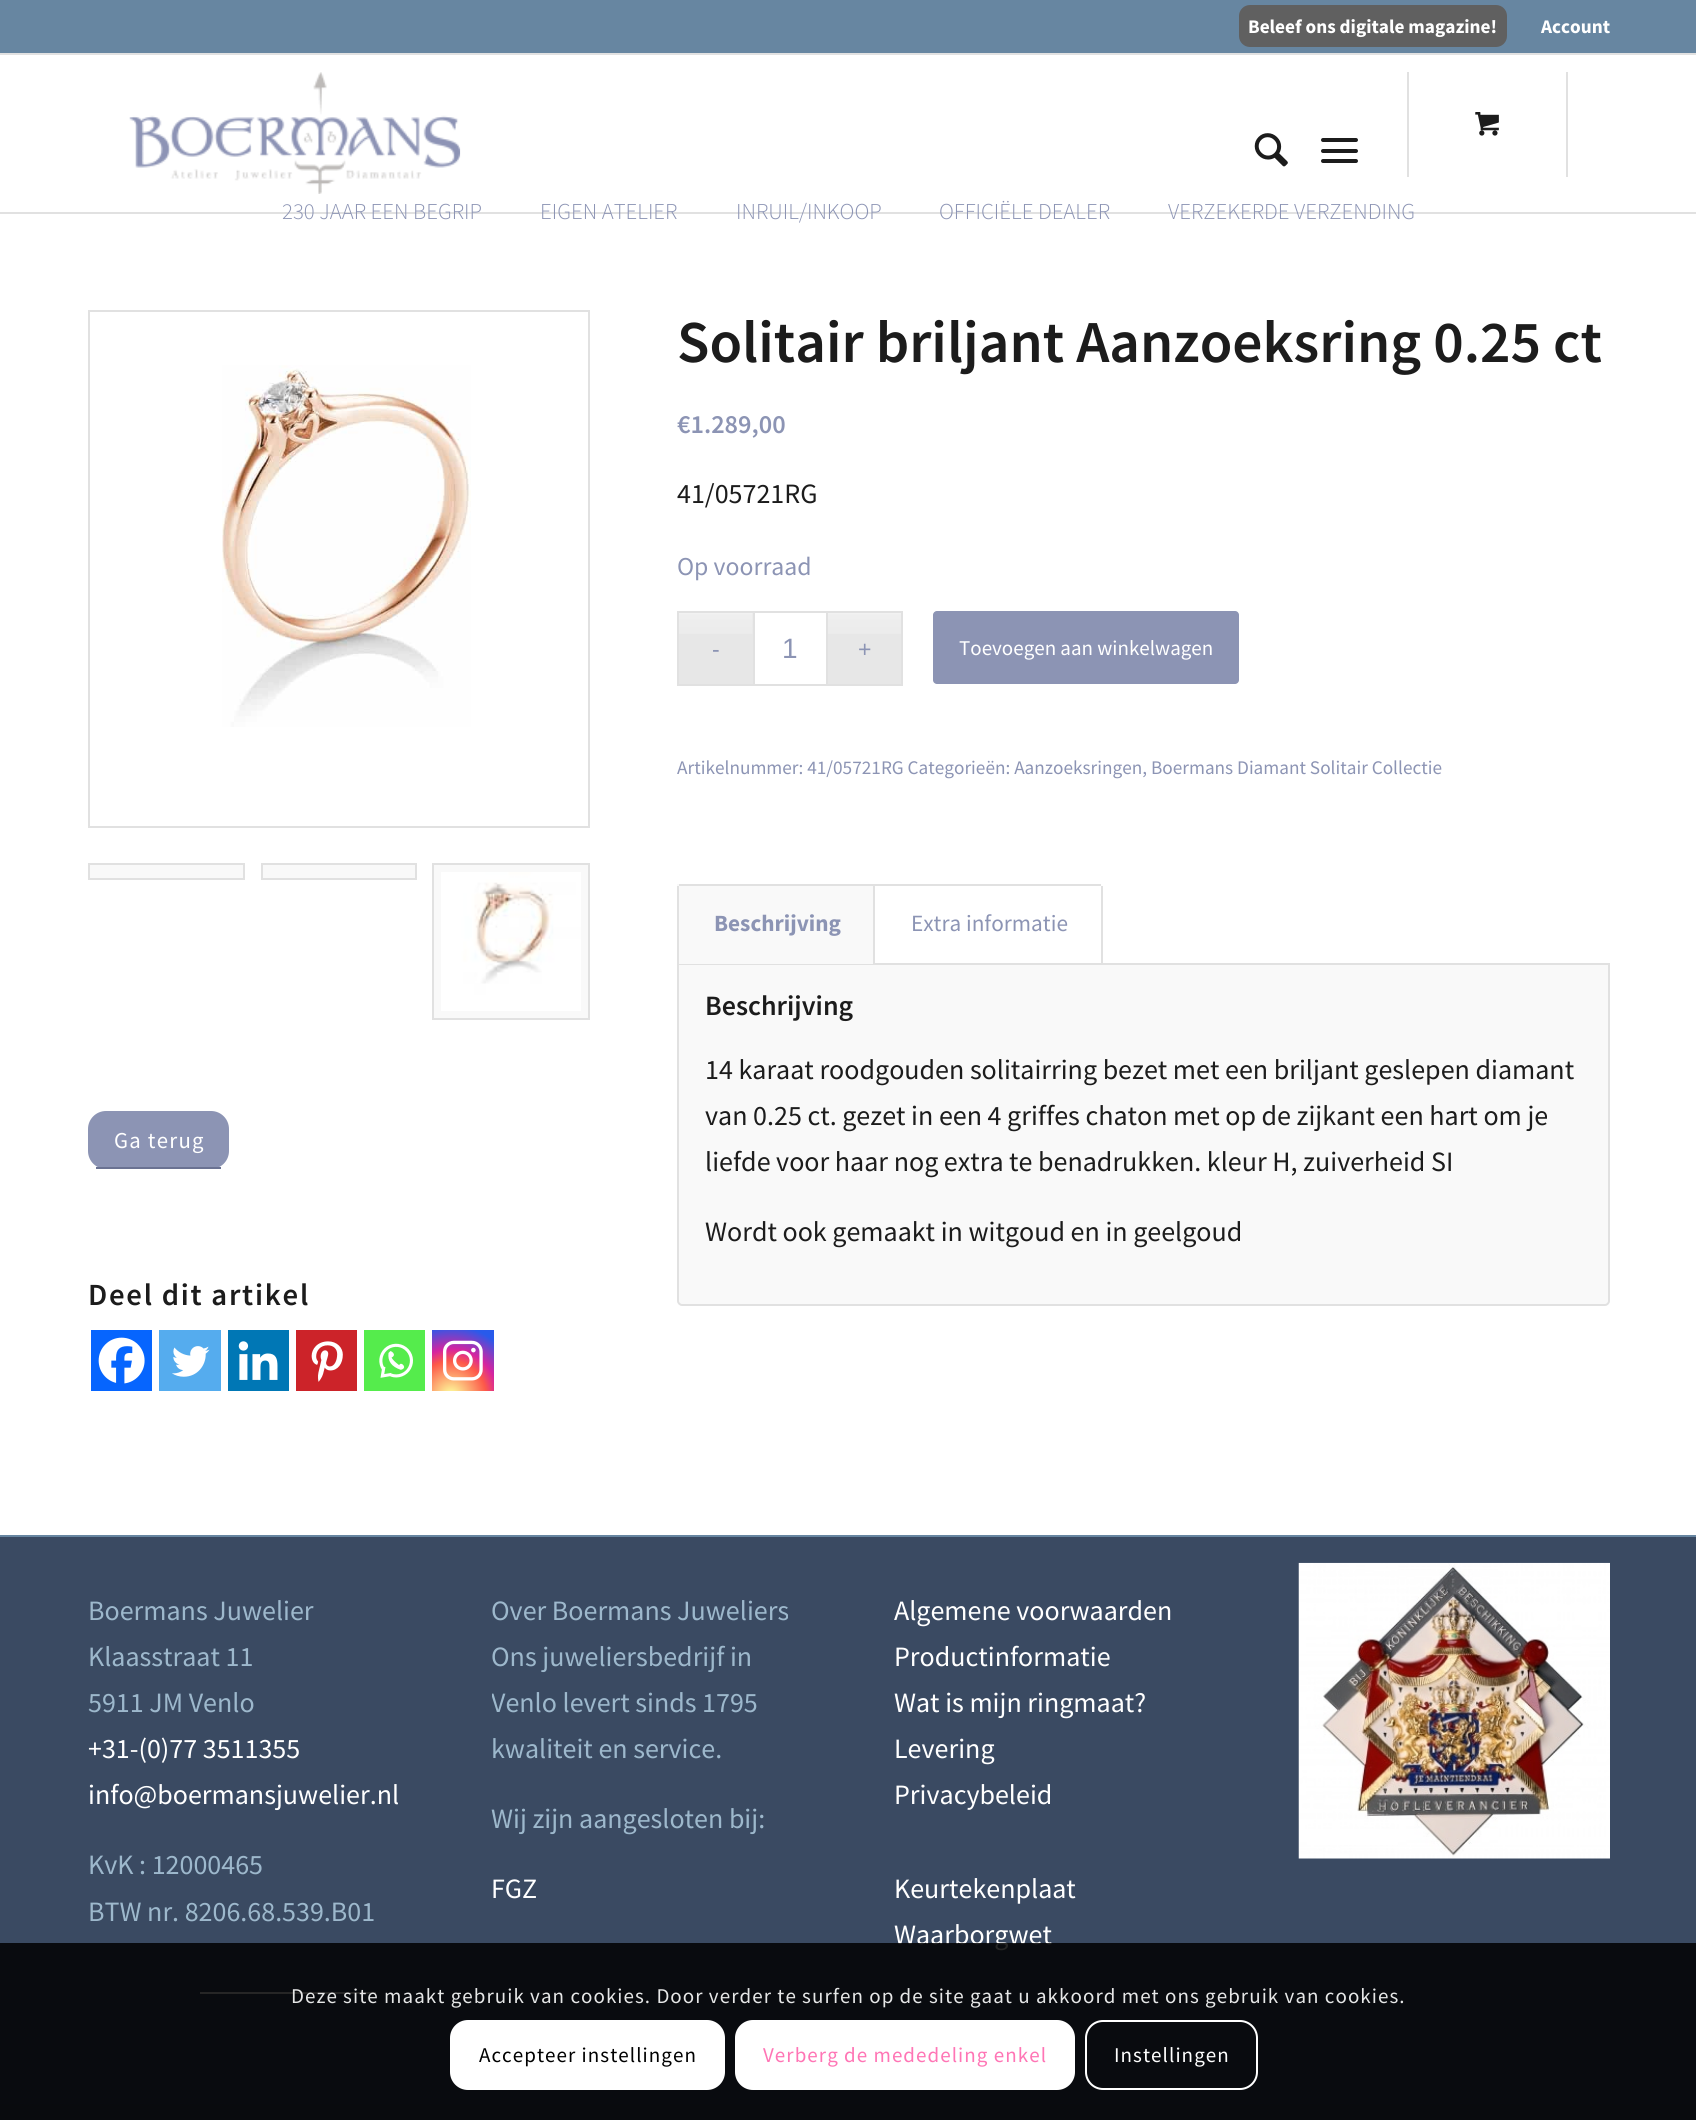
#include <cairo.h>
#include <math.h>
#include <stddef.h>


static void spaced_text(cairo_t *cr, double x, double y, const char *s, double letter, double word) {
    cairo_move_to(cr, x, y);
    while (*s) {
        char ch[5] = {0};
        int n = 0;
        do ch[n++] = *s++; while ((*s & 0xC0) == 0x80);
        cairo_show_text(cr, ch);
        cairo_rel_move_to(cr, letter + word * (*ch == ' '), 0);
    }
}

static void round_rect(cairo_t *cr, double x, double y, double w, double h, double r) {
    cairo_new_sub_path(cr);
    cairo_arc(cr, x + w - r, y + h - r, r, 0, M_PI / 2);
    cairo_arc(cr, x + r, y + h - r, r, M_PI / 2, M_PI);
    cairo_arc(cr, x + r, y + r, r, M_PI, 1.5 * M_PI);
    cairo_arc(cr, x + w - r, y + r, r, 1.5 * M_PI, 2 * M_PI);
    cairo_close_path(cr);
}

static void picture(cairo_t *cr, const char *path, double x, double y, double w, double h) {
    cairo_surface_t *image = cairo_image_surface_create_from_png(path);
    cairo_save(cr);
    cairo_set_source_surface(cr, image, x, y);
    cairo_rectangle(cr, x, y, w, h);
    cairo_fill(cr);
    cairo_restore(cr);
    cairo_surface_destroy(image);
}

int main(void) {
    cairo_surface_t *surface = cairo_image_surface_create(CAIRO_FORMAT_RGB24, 1696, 2120);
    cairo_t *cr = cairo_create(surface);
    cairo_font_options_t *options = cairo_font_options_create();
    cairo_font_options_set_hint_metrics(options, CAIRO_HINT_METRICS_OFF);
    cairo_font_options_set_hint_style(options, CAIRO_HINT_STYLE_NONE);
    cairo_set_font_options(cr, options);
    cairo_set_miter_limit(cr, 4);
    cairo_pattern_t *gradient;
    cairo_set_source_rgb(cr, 0.227, 0.302, 0.361);
    cairo_paint(cr);
    cairo_set_source_rgb(cr, 0.404, 0.525, 0.631);
    cairo_rectangle(cr, 0, 0, 1696, 53);
    cairo_fill(cr);
    cairo_set_source_rgb(cr, 0.882, 0.882, 0.882);
    cairo_rectangle(cr, 0, 53, 1696, 2);
    cairo_fill(cr);
    cairo_set_source_rgb(cr, 0.376, 0.376, 0.376);
    round_rect(cr, 1239, 5, 268, 42, 11);
    cairo_fill(cr);
    cairo_select_font_face(cr, "Source Sans Pro", CAIRO_FONT_SLANT_NORMAL, CAIRO_FONT_WEIGHT_BOLD);
    cairo_set_font_size(cr, 19.25);
    cairo_set_source_rgb(cr, 1, 1, 1);
    cairo_move_to(cr, 1248, 33);
    cairo_show_text(cr, "Beleef ons digitale magazine!");
    cairo_move_to(cr, 1541, 33);
    cairo_show_text(cr, "Account");
    cairo_rectangle(cr, 0, 55, 1696, 157);
    cairo_fill(cr);
    cairo_set_source_rgb(cr, 0.882, 0.882, 0.882);
    cairo_rectangle(cr, 0, 212, 1696, 2);
    cairo_fill(cr);
    picture(cr, "img1.png", 129, 72, 332, 122);
    picture(cr, "img2.png", 1254, 133, 34, 34);
    cairo_set_source_rgb(cr, 0.11, 0.11, 0.11);
    round_rect(cr, 1321, 149, 37, 4, 2);
    cairo_fill(cr);
    round_rect(cr, 1321, 138, 37, 4, 2);
    cairo_fill(cr);
    round_rect(cr, 1321, 159, 37, 4, 2);
    cairo_fill(cr);
    cairo_set_source_rgb(cr, 0.882, 0.882, 0.882);
    cairo_rectangle(cr, 1566, 72, 2, 105);
    cairo_fill(cr);
    cairo_rectangle(cr, 1407, 72, 2, 105);
    cairo_fill(cr);
    picture(cr, "img3.png", 1475, 112, 24, 24);
    cairo_set_source_rgb(cr, 1, 1, 1);
    cairo_rectangle(cr, 0, 214, 1696, 1321);
    cairo_fill(cr);
    cairo_select_font_face(cr, "Source Sans Pro Light", CAIRO_FONT_SLANT_NORMAL, CAIRO_FONT_WEIGHT_NORMAL);
    cairo_set_font_size(cr, 22.75);
    cairo_set_source_rgb(cr, 0.549, 0.58, 0.706);
    cairo_move_to(cr, 282, 219);
    cairo_show_text(cr, "230 JAAR EEN BEGRIP");
    cairo_move_to(cr, 540, 219);
    cairo_show_text(cr, "EIGEN ATELIER");
    cairo_move_to(cr, 736, 219);
    cairo_show_text(cr, "INRUIL/INKOOP");
    cairo_move_to(cr, 939, 219);
    cairo_show_text(cr, "OFFICIËLE DEALER");
    cairo_move_to(cr, 1168, 219);
    cairo_show_text(cr, "VERZEKERDE VERZENDING");
    cairo_rectangle(cr, 89, 311, 500, 516);
    cairo_set_source_rgb(cr, 0.882, 0.882, 0.882);
    cairo_stroke(cr);
    picture(cr, "img4.png", 222, 365, 249, 362);
    cairo_set_source_rgb(cr, 0.973, 0.973, 0.973);
    cairo_rectangle(cr, 89, 864, 155, 15);
    cairo_fill_preserve(cr);
    cairo_set_source_rgb(cr, 0.882, 0.882, 0.882);
    cairo_stroke(cr);
    cairo_set_source_rgb(cr, 0.973, 0.973, 0.973);
    cairo_rectangle(cr, 262, 864, 154, 15);
    cairo_fill_preserve(cr);
    cairo_set_source_rgb(cr, 0.882, 0.882, 0.882);
    cairo_stroke(cr);
    cairo_set_source_rgb(cr, 0.973, 0.973, 0.973);
    cairo_rectangle(cr, 433, 864, 156, 155);
    cairo_fill_preserve(cr);
    cairo_set_source_rgb(cr, 0.882, 0.882, 0.882);
    cairo_stroke(cr);
    picture(cr, "img5.png", 441, 872, 140, 139);
    cairo_set_source_rgb(cr, 0.549, 0.58, 0.706);
    round_rect(cr, 88, 1111, 141, 58, 18);
    cairo_fill(cr);
    cairo_set_source_rgb(cr, 0.416, 0.447, 0.573);
    cairo_rectangle(cr, 96, 1167, 125, 2);
    cairo_fill(cr);
    cairo_select_font_face(cr, "Source Sans Pro", CAIRO_FONT_SLANT_NORMAL, CAIRO_FONT_WEIGHT_NORMAL);
    cairo_set_source_rgb(cr, 1, 1, 1);
    spaced_text(cr, 114, 1148, "Ga terug", 1.25, 0);
    cairo_select_font_face(cr, "Source Sans Pro SemiBold", CAIRO_FONT_SLANT_NORMAL, CAIRO_FONT_WEIGHT_NORMAL);
    cairo_set_font_size(cr, 30.75);
    cairo_set_source_rgb(cr, 0.11, 0.11, 0.11);
    spaced_text(cr, 88, 1305, "Deel dit artikel", 1.75, 0);
    cairo_set_source_rgb(cr, 0.027, 0.396, 0.996);
    cairo_rectangle(cr, 91, 1330, 61, 61);
    cairo_fill(cr);
    picture(cr, "img6.png", 98, 1337, 47, 47);
    cairo_set_source_rgb(cr, 0.333, 0.675, 0.933);
    cairo_rectangle(cr, 159, 1330, 62, 61);
    cairo_fill(cr);
    picture(cr, "img7.png", 172, 1346, 38, 31);
    cairo_set_source_rgb(cr, 0, 0.467, 0.71);
    cairo_rectangle(cr, 228, 1330, 61, 61);
    cairo_fill(cr);
    picture(cr, "img8.png", 238, 1341, 40, 39);
    cairo_set_source_rgb(cr, 0.8, 0.137, 0.161);
    cairo_rectangle(cr, 296, 1330, 61, 61);
    cairo_fill(cr);
    picture(cr, "img9.png", 311, 1341, 32, 41);
    cairo_set_source_rgb(cr, 0.333, 0.922, 0.298);
    cairo_rectangle(cr, 364, 1330, 61, 61);
    cairo_fill(cr);
    picture(cr, "img10.png", 379, 1343, 34, 35);
    gradient = cairo_pattern_create_radial(451, 1396, 0, 451, 1396, 78);
    cairo_pattern_add_color_stop_rgba(gradient, 0, 0.992, 0.957, 0.592, 1);
    cairo_pattern_add_color_stop_rgba(gradient, 0.05, 0.992, 0.957, 0.592, 1);
    cairo_pattern_add_color_stop_rgba(gradient, 0.45, 0.992, 0.349, 0.286, 1);
    cairo_pattern_add_color_stop_rgba(gradient, 0.6, 0.839, 0.141, 0.624, 1);
    cairo_pattern_add_color_stop_rgba(gradient, 0.9, 0.157, 0.353, 0.922, 1);
    cairo_set_source(cr, gradient);
    cairo_pattern_destroy(gradient);
    cairo_rectangle(cr, 432, 1330, 62, 61);
    cairo_fill(cr);
    picture(cr, "img11.png", 443, 1340, 40, 41);
    cairo_set_font_size(cr, 59.5);
    cairo_set_source_rgb(cr, 0.11, 0.11, 0.11);
    cairo_move_to(cr, 677, 362);
    cairo_show_text(cr, "Solitair briljant Aanzoeksring 0.25 ct");
    cairo_set_font_size(cr, 26.25);
    cairo_set_source_rgb(cr, 0.549, 0.58, 0.706);
    cairo_move_to(cr, 677, 433);
    cairo_show_text(cr, "€1.289,00");
    cairo_select_font_face(cr, "Source Sans Pro", CAIRO_FONT_SLANT_NORMAL, CAIRO_FONT_WEIGHT_NORMAL);
    cairo_set_font_size(cr, 28);
    cairo_set_source_rgb(cr, 0.11, 0.11, 0.11);
    cairo_move_to(cr, 677, 503);
    cairo_show_text(cr, "41/05721RG");
    cairo_set_font_size(cr, 25.75);
    cairo_set_source_rgb(cr, 0.549, 0.58, 0.706);
    cairo_move_to(cr, 677, 575);
    cairo_show_text(cr, "Op voorraad");
    cairo_set_source_rgb(cr, 0.906, 0.906, 0.906);
    cairo_rectangle(cr, 679, 613, 74, 71);
    cairo_fill(cr);
    picture(cr, "img12.png", 679, 613, 74, 21);
    cairo_rectangle(cr, 828, 613, 73, 71);
    cairo_fill(cr);
    picture(cr, "img13.png", 828, 613, 73, 21);
    cairo_select_font_face(cr, "Liberation Sans", CAIRO_FONT_SLANT_NORMAL, CAIRO_FONT_WEIGHT_NORMAL);
    cairo_set_font_size(cr, 23);
    cairo_set_source_rgb(cr, 0.549, 0.58, 0.706);
    cairo_move_to(cr, 712, 657);
    cairo_show_text(cr, "-");
    cairo_set_source_rgb(cr, 0.882, 0.882, 0.882);
    cairo_rectangle(cr, 677, 611, 76, 2);
    cairo_fill(cr);
    cairo_rectangle(cr, 677, 684, 76, 2);
    cairo_fill(cr);
    cairo_rectangle(cr, 677, 611, 2, 75);
    cairo_fill(cr);
    cairo_rectangle(cr, 754, 612, 73, 73);
    cairo_stroke(cr);
    cairo_set_font_size(cr, 28);
    cairo_set_source_rgb(cr, 0.549, 0.58, 0.706);
    cairo_move_to(cr, 782, 658);
    cairo_show_text(cr, "1");
    cairo_set_font_size(cr, 23);
    cairo_move_to(cr, 858, 657);
    cairo_show_text(cr, "+");
    cairo_set_source_rgb(cr, 0.882, 0.882, 0.882);
    cairo_rectangle(cr, 828, 611, 75, 2);
    cairo_fill(cr);
    cairo_rectangle(cr, 901, 611, 2, 75);
    cairo_fill(cr);
    cairo_rectangle(cr, 828, 684, 75, 2);
    cairo_fill(cr);
    cairo_set_source_rgb(cr, 0.549, 0.58, 0.706);
    round_rect(cr, 933, 611, 306, 73, 4);
    cairo_fill(cr);
    cairo_select_font_face(cr, "Source Sans Pro", CAIRO_FONT_SLANT_NORMAL, CAIRO_FONT_WEIGHT_NORMAL);
    cairo_set_font_size(cr, 21);
    cairo_set_source_rgb(cr, 1, 1, 1);
    cairo_move_to(cr, 959, 655);
    cairo_show_text(cr, "Toevoegen aan winkelwagen");
    cairo_set_font_size(cr, 19.25);
    cairo_set_source_rgb(cr, 0.549, 0.58, 0.706);
    cairo_move_to(cr, 677, 774);
    cairo_show_text(cr, "Artikelnummer: 41/05721RG Categorieën: Aanzoeksringen, Boermans Diamant Solitair Collectie");
    cairo_set_source_rgb(cr, 0.973, 0.973, 0.973);
    cairo_new_path(cr);
    cairo_move_to(cr, 678, 964);
    cairo_line_to(cr, 1609, 964);
    cairo_line_to(cr, 1609, 1301);
    cairo_curve_to(cr, 1609, 1303, 1607, 1305, 1605, 1305);
    cairo_line_to(cr, 682, 1305);
    cairo_curve_to(cr, 680, 1305, 678, 1303, 678, 1301);
    cairo_close_path(cr);
    cairo_fill_preserve(cr);
    cairo_set_source_rgb(cr, 0.882, 0.882, 0.882);
    cairo_stroke(cr);
    cairo_set_source_rgb(cr, 0.973, 0.973, 0.973);
    cairo_rectangle(cr, 677, 884, 196, 80);
    cairo_fill(cr);
    cairo_set_source_rgb(cr, 0.882, 0.882, 0.882);
    cairo_rectangle(cr, 873, 884, 228, 2);
    cairo_fill(cr);
    cairo_rectangle(cr, 679, 884, 196, 2);
    cairo_fill(cr);
    cairo_rectangle(cr, 873, 884, 2, 80);
    cairo_fill(cr);
    cairo_rectangle(cr, 677, 886, 2, 78);
    cairo_fill(cr);
    cairo_select_font_face(cr, "Source Sans Pro", CAIRO_FONT_SLANT_NORMAL, CAIRO_FONT_WEIGHT_BOLD);
    cairo_set_font_size(cr, 23.25);
    cairo_set_source_rgb(cr, 0.549, 0.58, 0.706);
    cairo_move_to(cr, 714, 931);
    cairo_show_text(cr, "Beschrijving");
    cairo_set_source_rgb(cr, 0.882, 0.882, 0.882);
    cairo_rectangle(cr, 1101, 886, 2, 78);
    cairo_fill(cr);
    cairo_select_font_face(cr, "Source Sans Pro", CAIRO_FONT_SLANT_NORMAL, CAIRO_FONT_WEIGHT_NORMAL);
    cairo_set_source_rgb(cr, 0.549, 0.58, 0.706);
    cairo_move_to(cr, 911, 931);
    cairo_show_text(cr, "Extra informatie");
    cairo_select_font_face(cr, "Source Sans Pro SemiBold", CAIRO_FONT_SLANT_NORMAL, CAIRO_FONT_WEIGHT_NORMAL);
    cairo_set_font_size(cr, 28);
    cairo_set_source_rgb(cr, 0.11, 0.11, 0.11);
    cairo_move_to(cr, 705, 1015);
    cairo_show_text(cr, "Beschrijving");
    cairo_select_font_face(cr, "Source Sans Pro", CAIRO_FONT_SLANT_NORMAL, CAIRO_FONT_WEIGHT_NORMAL);
    cairo_move_to(cr, 705, 1079);
    cairo_show_text(cr, "14 karaat roodgouden solitairring bezet met een briljant geslepen diamant");
    cairo_move_to(cr, 705, 1125);
    cairo_show_text(cr, "van 0.25 ct. gezet in een 4 griffes chaton met op de zijkant een hart om je");
    cairo_move_to(cr, 705, 1171);
    cairo_show_text(cr, "liefde voor haar nog extra te benadrukken. kleur H, zuiverheid SI");
    cairo_move_to(cr, 705, 1241);
    cairo_show_text(cr, "Wordt ook gemaakt in witgoud en in geelgoud");
    cairo_set_source_rgb(cr, 0.227, 0.29, 0.384);
    cairo_rectangle(cr, 0, 1537, 1696, 567);
    cairo_fill(cr);
    cairo_set_source_rgb(cr, 0.404, 0.525, 0.631);
    cairo_rectangle(cr, 0, 1535, 1696, 2);
    cairo_fill(cr);
    cairo_set_source_rgb(cr, 0.616, 0.722, 0.8);
    cairo_move_to(cr, 88, 1620);
    cairo_show_text(cr, "Boermans Juwelier");
    cairo_move_to(cr, 88, 1666);
    cairo_show_text(cr, "Klaasstraat 11");
    cairo_move_to(cr, 88, 1712);
    cairo_show_text(cr, "5911 JM Venlo");
    cairo_set_source_rgb(cr, 1, 1, 1);
    cairo_move_to(cr, 88, 1758);
    cairo_show_text(cr, "+31-(0)77 3511355");
    cairo_move_to(cr, 88, 1804);
    cairo_show_text(cr, "info@boermansjuwelier.nl");
    cairo_set_source_rgb(cr, 0.616, 0.722, 0.8);
    cairo_move_to(cr, 88, 1874);
    cairo_show_text(cr, "KvK : 12000465");
    cairo_move_to(cr, 88, 1921);
    cairo_show_text(cr, "BTW nr. 8206.68.539.B01");
    cairo_set_source_rgb(cr, 1, 1, 1);
    cairo_rectangle(cr, 200, 1992, 176, 2);
    cairo_fill(cr);
    cairo_set_source_rgb(cr, 0.616, 0.722, 0.8);
    cairo_move_to(cr, 491, 1620);
    cairo_show_text(cr, "Over Boermans Juweliers");
    cairo_move_to(cr, 491, 1666);
    cairo_show_text(cr, "Ons juweliersbedrijf in");
    cairo_save(cr);
    cairo_rectangle(cr, 492, 1563, 311, 373);
    cairo_clip(cr);
    cairo_move_to(cr, 491, 1712);
    cairo_show_text(cr, "Venlo levert sinds 1795");
    cairo_restore(cr);
    cairo_move_to(cr, 491, 1758);
    cairo_show_text(cr, "kwaliteit en service.");
    cairo_move_to(cr, 491, 1828);
    cairo_show_text(cr, "Wij zijn aangesloten bij:");
    cairo_set_source_rgb(cr, 1, 1, 1);
    cairo_move_to(cr, 491, 1898);
    cairo_show_text(cr, "FGZ");
    cairo_move_to(cr, 894, 1620);
    cairo_show_text(cr, "Algemene voorwaarden");
    cairo_move_to(cr, 894, 1666);
    cairo_show_text(cr, "Productinformatie");
    cairo_move_to(cr, 894, 1712);
    cairo_show_text(cr, "Wat is mijn ringmaat?");
    cairo_move_to(cr, 894, 1758);
    cairo_show_text(cr, "Levering");
    cairo_move_to(cr, 894, 1804);
    cairo_show_text(cr, "Privacybeleid");
    cairo_move_to(cr, 894, 1898);
    cairo_show_text(cr, "Keurtekenplaat");
    cairo_move_to(cr, 894, 1944);
    cairo_show_text(cr, "Waarborgwet");
    picture(cr, "img14.png", 1298, 1562, 312, 297);
    cairo_set_source_rgba(cr, 0, 0, 0, 0.85);
    cairo_rectangle(cr, 0, 1943, 1696, 177);
    cairo_fill(cr);
    cairo_set_font_size(cr, 21);
    cairo_set_source_rgb(cr, 0.902, 0.906, 0.906);
    spaced_text(cr, 291, 2003, "Deze site maakt gebruik van cookies. Door verder te surfen op de site gaat u akkoord met ons gebruik van cookies.", 1.05, 0);
    cairo_set_source_rgb(cr, 1, 1, 1);
    round_rect(cr, 450, 2020, 275, 70, 18);
    cairo_fill(cr);
    cairo_set_source_rgb(cr, 0, 0, 0);
    spaced_text(cr, 479, 2062, "Accepteer instellingen", 1.05, 0);
    cairo_set_source_rgb(cr, 1, 1, 1);
    round_rect(cr, 736, 2021, 338, 68, 17);
    cairo_fill_preserve(cr);
    cairo_stroke(cr);
    cairo_set_source_rgb(cr, 1, 0.459, 0.71);
    spaced_text(cr, 763, 2062, "Verberg de mededeling enkel", 1.05, 0);
    round_rect(cr, 1086, 2021, 171, 68, 17);
    cairo_set_source_rgb(cr, 1, 1, 1);
    cairo_stroke(cr);
    spaced_text(cr, 1114, 2062, "Instellingen", 1.05, 0);
    cairo_surface_write_to_png(surface, "page.png");
    cairo_font_options_destroy(options);
    cairo_destroy(cr);
    cairo_surface_destroy(surface);
    return 0;
}
